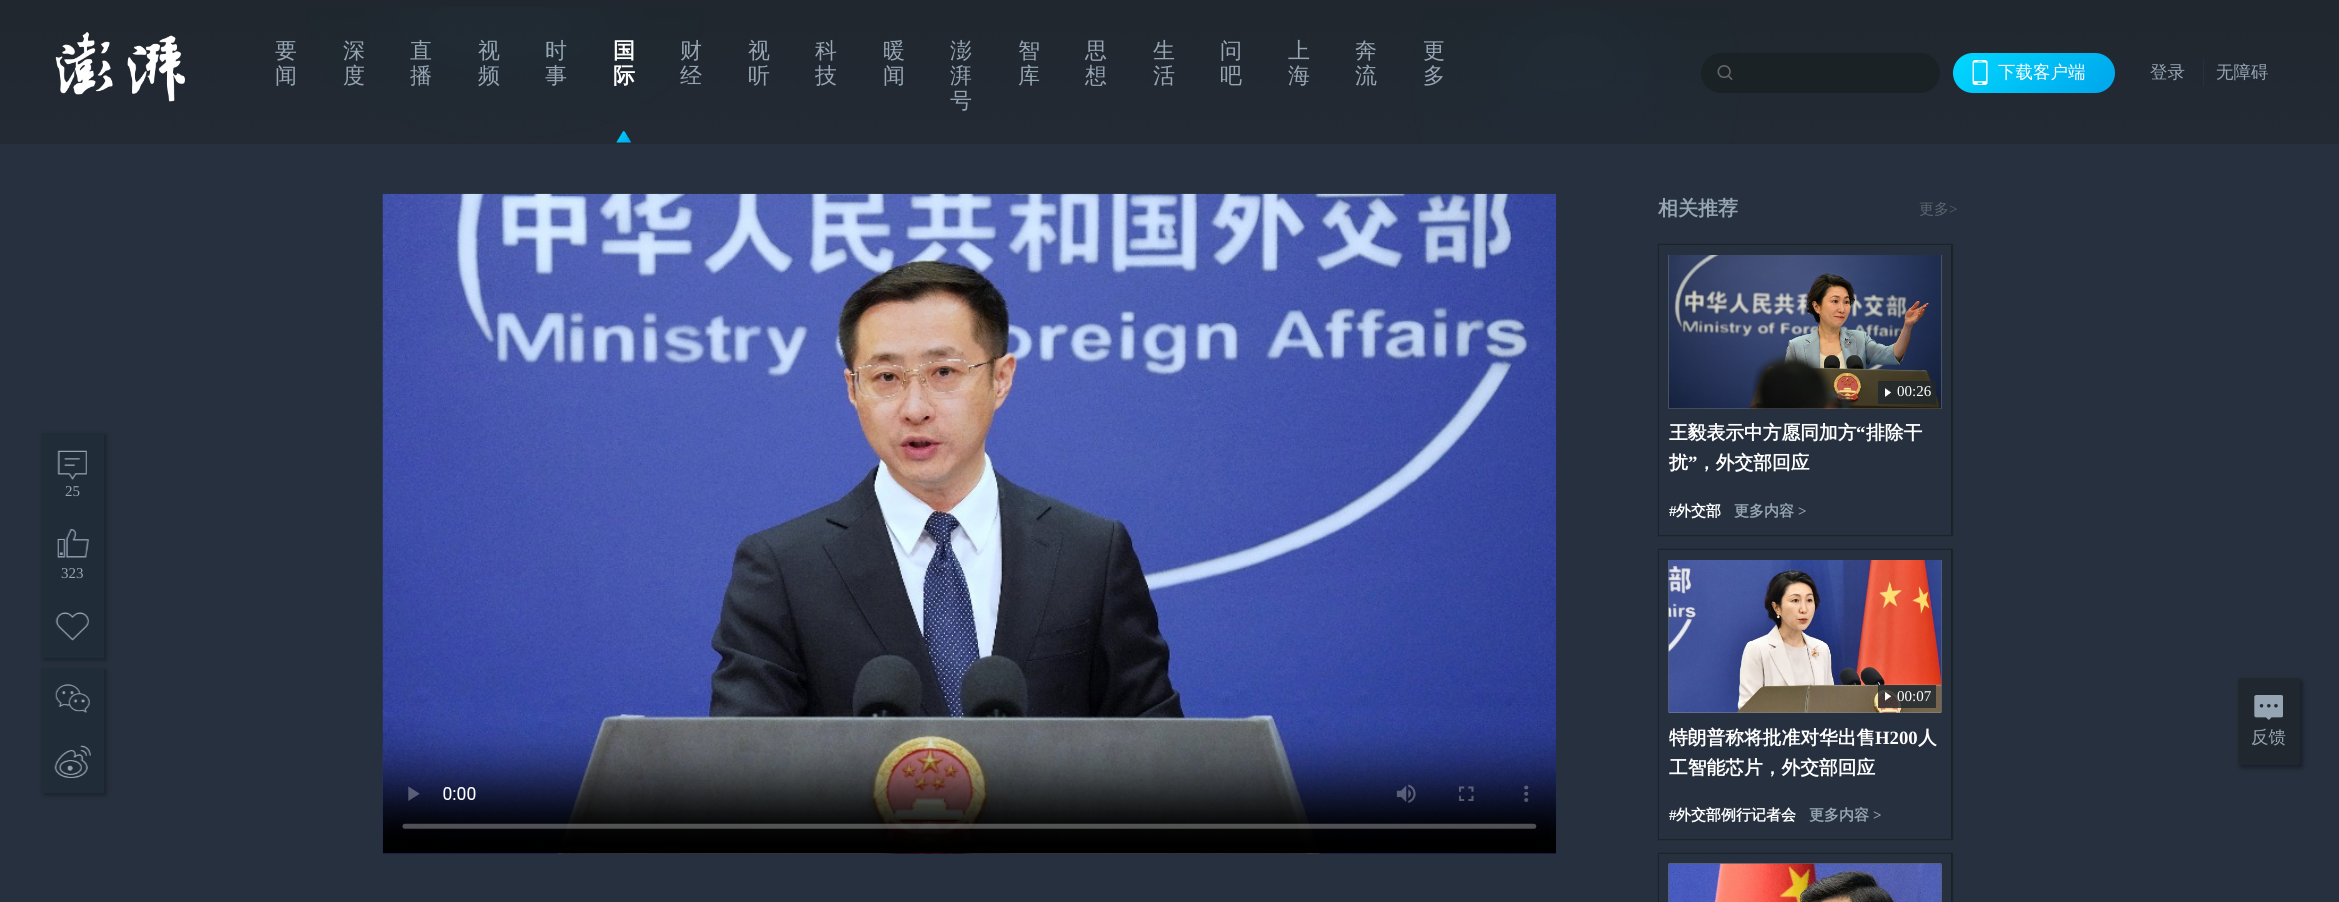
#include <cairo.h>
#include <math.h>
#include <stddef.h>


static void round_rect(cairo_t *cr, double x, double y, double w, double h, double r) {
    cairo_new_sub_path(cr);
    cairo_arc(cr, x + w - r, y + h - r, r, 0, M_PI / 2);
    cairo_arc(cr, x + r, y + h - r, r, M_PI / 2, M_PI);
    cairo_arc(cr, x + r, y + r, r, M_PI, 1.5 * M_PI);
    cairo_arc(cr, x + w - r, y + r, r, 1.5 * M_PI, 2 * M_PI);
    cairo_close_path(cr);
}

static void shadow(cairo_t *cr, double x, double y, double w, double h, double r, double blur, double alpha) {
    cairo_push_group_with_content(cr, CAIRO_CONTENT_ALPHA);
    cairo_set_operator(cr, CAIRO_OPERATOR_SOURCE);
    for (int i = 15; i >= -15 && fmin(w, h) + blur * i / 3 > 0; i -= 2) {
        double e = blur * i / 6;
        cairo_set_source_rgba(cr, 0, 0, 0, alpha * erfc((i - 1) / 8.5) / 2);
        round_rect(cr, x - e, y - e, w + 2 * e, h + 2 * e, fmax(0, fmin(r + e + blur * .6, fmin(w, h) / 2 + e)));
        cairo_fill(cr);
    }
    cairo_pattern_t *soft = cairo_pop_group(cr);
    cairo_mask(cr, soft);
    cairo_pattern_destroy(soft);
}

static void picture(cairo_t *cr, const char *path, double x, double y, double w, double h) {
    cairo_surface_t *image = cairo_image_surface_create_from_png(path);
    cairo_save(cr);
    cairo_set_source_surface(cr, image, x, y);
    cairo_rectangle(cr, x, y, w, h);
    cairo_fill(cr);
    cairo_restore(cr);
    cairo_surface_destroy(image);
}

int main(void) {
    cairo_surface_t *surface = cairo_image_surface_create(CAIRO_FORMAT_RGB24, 2339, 902);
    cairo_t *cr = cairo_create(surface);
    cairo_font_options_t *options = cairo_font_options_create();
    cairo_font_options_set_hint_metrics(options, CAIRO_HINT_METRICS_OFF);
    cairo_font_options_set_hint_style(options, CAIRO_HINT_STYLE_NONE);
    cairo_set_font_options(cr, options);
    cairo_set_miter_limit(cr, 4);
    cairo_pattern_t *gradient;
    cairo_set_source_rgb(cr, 0.125, 0.153, 0.18);
    cairo_paint(cr);
    picture(cr, "img1.png", 0, 7, 2339, 137);
    picture(cr, "img2.png", 55, 32, 130, 70);
    cairo_select_font_face(cr, "WenQuanYi Zen Hei Medium", CAIRO_FONT_SLANT_NORMAL, CAIRO_FONT_WEIGHT_NORMAL);
    cairo_set_font_size(cr, 22);
    cairo_set_source_rgb(cr, 0.588, 0.647, 0.706);
    cairo_move_to(cr, 275, 58);
    cairo_show_text(cr, "要");
    cairo_move_to(cr, 275, 83);
    cairo_show_text(cr, "闻");
    cairo_move_to(cr, 343, 58);
    cairo_show_text(cr, "深");
    cairo_move_to(cr, 343, 83);
    cairo_show_text(cr, "度");
    cairo_move_to(cr, 410, 58);
    cairo_show_text(cr, "直");
    cairo_move_to(cr, 410, 83);
    cairo_show_text(cr, "播");
    cairo_move_to(cr, 478, 58);
    cairo_show_text(cr, "视");
    cairo_move_to(cr, 478, 83);
    cairo_show_text(cr, "频");
    cairo_move_to(cr, 545, 58);
    cairo_show_text(cr, "时");
    cairo_move_to(cr, 545, 83);
    cairo_show_text(cr, "事");
    picture(cr, "img3.png", 616, 131, 16, 12);
    cairo_select_font_face(cr, "WenQuanYi Zen Hei", CAIRO_FONT_SLANT_NORMAL, CAIRO_FONT_WEIGHT_BOLD);
    cairo_set_source_rgb(cr, 1, 1, 1);
    cairo_move_to(cr, 613, 58);
    cairo_show_text(cr, "国");
    cairo_move_to(cr, 613, 83);
    cairo_show_text(cr, "际");
    cairo_select_font_face(cr, "WenQuanYi Zen Hei Medium", CAIRO_FONT_SLANT_NORMAL, CAIRO_FONT_WEIGHT_NORMAL);
    cairo_set_source_rgb(cr, 0.588, 0.647, 0.706);
    cairo_move_to(cr, 680, 58);
    cairo_show_text(cr, "财");
    cairo_move_to(cr, 680, 83);
    cairo_show_text(cr, "经");
    cairo_move_to(cr, 748, 58);
    cairo_show_text(cr, "视");
    cairo_move_to(cr, 748, 83);
    cairo_show_text(cr, "听");
    cairo_move_to(cr, 815, 58);
    cairo_show_text(cr, "科");
    cairo_move_to(cr, 815, 83);
    cairo_show_text(cr, "技");
    cairo_move_to(cr, 883, 58);
    cairo_show_text(cr, "暖");
    cairo_move_to(cr, 883, 83);
    cairo_show_text(cr, "闻");
    cairo_move_to(cr, 950, 58);
    cairo_show_text(cr, "澎");
    cairo_move_to(cr, 950, 83);
    cairo_show_text(cr, "湃");
    cairo_move_to(cr, 950, 108);
    cairo_show_text(cr, "号");
    cairo_move_to(cr, 1018, 58);
    cairo_show_text(cr, "智");
    cairo_move_to(cr, 1018, 83);
    cairo_show_text(cr, "库");
    cairo_move_to(cr, 1085, 58);
    cairo_show_text(cr, "思");
    cairo_move_to(cr, 1085, 83);
    cairo_show_text(cr, "想");
    cairo_move_to(cr, 1153, 58);
    cairo_show_text(cr, "生");
    cairo_move_to(cr, 1153, 83);
    cairo_show_text(cr, "活");
    cairo_move_to(cr, 1220, 58);
    cairo_show_text(cr, "问");
    cairo_move_to(cr, 1220, 83);
    cairo_show_text(cr, "吧");
    cairo_move_to(cr, 1288, 58);
    cairo_show_text(cr, "上");
    cairo_move_to(cr, 1288, 83);
    cairo_show_text(cr, "海");
    cairo_move_to(cr, 1355, 58);
    cairo_show_text(cr, "奔");
    cairo_move_to(cr, 1355, 83);
    cairo_show_text(cr, "流");
    cairo_move_to(cr, 1423, 58);
    cairo_show_text(cr, "更");
    cairo_move_to(cr, 1423, 83);
    cairo_show_text(cr, "多");
    cairo_set_source_rgb(cr, 0.102, 0.133, 0.149);
    round_rect(cr, 1701, 53, 239, 40, 20);
    cairo_fill(cr);
    picture(cr, "img4.png", 1717, 65, 16, 15);
    gradient = cairo_pattern_create_linear(1983, 22, 2084, 123);
    cairo_pattern_add_color_stop_rgba(gradient, 0, 0, 0.851, 1, 1);
    cairo_pattern_add_color_stop_rgba(gradient, 1, 0, 0.647, 0.922, 1);
    cairo_set_source(cr, gradient);
    cairo_pattern_destroy(gradient);
    round_rect(cr, 1953, 53, 162, 40, 20);
    cairo_fill(cr);
    picture(cr, "img5.png", 1972, 60, 16, 25);
    cairo_set_font_size(cr, 17.5);
    cairo_set_source_rgb(cr, 1, 1, 1);
    cairo_move_to(cr, 1998, 78);
    cairo_show_text(cr, "下载客户端");
    cairo_set_source_rgb(cr, 0.588, 0.647, 0.706);
    cairo_move_to(cr, 2150, 78);
    cairo_show_text(cr, "登录");
    cairo_set_source_rgb(cr, 0.153, 0.188, 0.243);
    cairo_rectangle(cr, 2203, 59, 1, 27);
    cairo_fill(cr);
    cairo_set_source_rgb(cr, 0.588, 0.647, 0.706);
    cairo_move_to(cr, 2216, 78);
    cairo_show_text(cr, "无障碍");
    cairo_set_source_rgb(cr, 0.153, 0.188, 0.243);
    cairo_rectangle(cr, 0, 144, 2339, 758);
    cairo_fill(cr);
    cairo_set_source_rgb(cr, 0.059, 0.09, 0.122);
    shadow(cr, 44, 435, 62, 225, 0, 2.5, 0.7);
    cairo_set_source_rgb(cr, 0.125, 0.173, 0.22);
    cairo_rectangle(cr, 41, 433, 63, 225);
    cairo_fill(cr);
    picture(cr, "img6.png", 57, 450, 30, 30);
    cairo_select_font_face(cr, "Liberation Serif", CAIRO_FONT_SLANT_NORMAL, CAIRO_FONT_WEIGHT_NORMAL);
    cairo_set_font_size(cr, 15);
    cairo_set_source_rgb(cr, 0.588, 0.647, 0.706);
    cairo_move_to(cr, 65, 496);
    cairo_show_text(cr, "25");
    picture(cr, "img7.png", 57, 528, 32, 30);
    cairo_move_to(cr, 61, 578);
    cairo_show_text(cr, "323");
    picture(cr, "img8.png", 55, 612, 34, 29);
    cairo_set_source_rgb(cr, 0.059, 0.09, 0.122);
    shadow(cr, 44, 670, 62, 125, 0, 2.5, 0.7);
    cairo_set_source_rgb(cr, 0.125, 0.173, 0.22);
    cairo_rectangle(cr, 41, 668, 63, 125);
    cairo_fill(cr);
    picture(cr, "img9.png", 55, 684, 36, 29);
    picture(cr, "img10.png", 54, 745, 37, 33);
    picture(cr, "img11.png", 382, 193, 1175, 661);
    cairo_select_font_face(cr, "WenQuanYi Zen Hei", CAIRO_FONT_SLANT_NORMAL, CAIRO_FONT_WEIGHT_BOLD);
    cairo_set_font_size(cr, 20);
    cairo_set_source_rgb(cr, 0.588, 0.647, 0.706);
    cairo_move_to(cr, 1658, 215);
    cairo_show_text(cr, "相关推荐");
    cairo_select_font_face(cr, "WenQuanYi Zen Hei Medium", CAIRO_FONT_SLANT_NORMAL, CAIRO_FONT_WEIGHT_NORMAL);
    cairo_set_font_size(cr, 15);
    cairo_set_source_rgb(cr, 0.353, 0.392, 0.431);
    cairo_move_to(cr, 1919, 214);
    cairo_show_text(cr, "更多");
    cairo_select_font_face(cr, "Liberation Serif", CAIRO_FONT_SLANT_NORMAL, CAIRO_FONT_WEIGHT_NORMAL);
    cairo_move_to(cr, 1949, 214);
    cairo_show_text(cr, ">");
    cairo_save(cr);
    cairo_set_fill_rule(cr, CAIRO_FILL_RULE_EVEN_ODD);
    cairo_new_path(cr);
    cairo_move_to(cr, 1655, 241);
    cairo_line_to(cr, 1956, 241);
    cairo_line_to(cr, 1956, 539);
    cairo_line_to(cr, 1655, 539);
    cairo_close_path(cr);
    cairo_move_to(cr, 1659, 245);
    cairo_line_to(cr, 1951, 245);
    cairo_line_to(cr, 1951, 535);
    cairo_line_to(cr, 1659, 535);
    cairo_close_path(cr);
    cairo_clip(cr);
    cairo_set_source_rgb(cr, 0.102, 0.133, 0.149);
    shadow(cr, 1658, 244, 295, 292, 0, 0.5, 1);
    cairo_restore(cr);
    picture(cr, "img12.png", 1668, 255, 274, 154);
    picture(cr, "img13.png", 1668, 255, 274, 154);
    cairo_set_source_rgba(cr, 0.125, 0.153, 0.18, 0.8);
    cairo_rectangle(cr, 1878, 381, 58, 23);
    cairo_fill(cr);
    picture(cr, "img14.png", 1885, 388, 7, 9);
    cairo_set_source_rgb(cr, 1, 1, 1);
    cairo_move_to(cr, 1897, 396);
    cairo_show_text(cr, "00:26");
    cairo_select_font_face(cr, "WenQuanYi Zen Hei", CAIRO_FONT_SLANT_NORMAL, CAIRO_FONT_WEIGHT_BOLD);
    cairo_set_font_size(cr, 18.75);
    cairo_move_to(cr, 1669, 439);
    cairo_show_text(cr, "王毅表示中方愿同加方");
    cairo_select_font_face(cr, "Liberation Serif", CAIRO_FONT_SLANT_NORMAL, CAIRO_FONT_WEIGHT_BOLD);
    cairo_move_to(cr, 1856, 439);
    cairo_show_text(cr, "“");
    cairo_select_font_face(cr, "WenQuanYi Zen Hei", CAIRO_FONT_SLANT_NORMAL, CAIRO_FONT_WEIGHT_BOLD);
    cairo_move_to(cr, 1866, 439);
    cairo_show_text(cr, "排除干");
    cairo_move_to(cr, 1669, 469);
    cairo_show_text(cr, "扰");
    cairo_select_font_face(cr, "Liberation Serif", CAIRO_FONT_SLANT_NORMAL, CAIRO_FONT_WEIGHT_BOLD);
    cairo_move_to(cr, 1688, 469);
    cairo_show_text(cr, "”");
    cairo_select_font_face(cr, "WenQuanYi Zen Hei", CAIRO_FONT_SLANT_NORMAL, CAIRO_FONT_WEIGHT_BOLD);
    cairo_move_to(cr, 1697, 469);
    cairo_show_text(cr, "，外交部回应");
    cairo_select_font_face(cr, "Liberation Serif", CAIRO_FONT_SLANT_NORMAL, CAIRO_FONT_WEIGHT_BOLD);
    cairo_set_font_size(cr, 15);
    cairo_move_to(cr, 1669, 516);
    cairo_show_text(cr, "#");
    cairo_select_font_face(cr, "WenQuanYi Zen Hei", CAIRO_FONT_SLANT_NORMAL, CAIRO_FONT_WEIGHT_BOLD);
    cairo_move_to(cr, 1676, 516);
    cairo_show_text(cr, "外交部");
    cairo_set_source_rgb(cr, 0.588, 0.647, 0.706);
    cairo_move_to(cr, 1734, 516);
    cairo_show_text(cr, "更多内容");
    cairo_select_font_face(cr, "Liberation Serif", CAIRO_FONT_SLANT_NORMAL, CAIRO_FONT_WEIGHT_BOLD);
    cairo_move_to(cr, 1798, 516);
    cairo_show_text(cr, ">");
    cairo_save(cr);
    cairo_set_fill_rule(cr, CAIRO_FILL_RULE_EVEN_ODD);
    cairo_new_path(cr);
    cairo_move_to(cr, 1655, 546);
    cairo_line_to(cr, 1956, 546);
    cairo_line_to(cr, 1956, 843);
    cairo_line_to(cr, 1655, 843);
    cairo_close_path(cr);
    cairo_move_to(cr, 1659, 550);
    cairo_line_to(cr, 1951, 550);
    cairo_line_to(cr, 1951, 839);
    cairo_line_to(cr, 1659, 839);
    cairo_close_path(cr);
    cairo_clip(cr);
    cairo_set_source_rgb(cr, 0.102, 0.133, 0.149);
    shadow(cr, 1658, 549, 295, 291, 0, 0.5, 1);
    cairo_restore(cr);
    picture(cr, "img15.png", 1668, 560, 274, 153);
    picture(cr, "img16.png", 1668, 560, 274, 153);
    cairo_set_source_rgba(cr, 0.125, 0.153, 0.18, 0.8);
    cairo_rectangle(cr, 1878, 685, 58, 23);
    cairo_fill(cr);
    picture(cr, "img17.png", 1885, 692, 7, 9);
    cairo_select_font_face(cr, "Liberation Serif", CAIRO_FONT_SLANT_NORMAL, CAIRO_FONT_WEIGHT_NORMAL);
    cairo_set_source_rgb(cr, 1, 1, 1);
    cairo_move_to(cr, 1897, 701);
    cairo_show_text(cr, "00:07");
    cairo_select_font_face(cr, "WenQuanYi Zen Hei", CAIRO_FONT_SLANT_NORMAL, CAIRO_FONT_WEIGHT_BOLD);
    cairo_set_font_size(cr, 18.75);
    cairo_move_to(cr, 1669, 744);
    cairo_show_text(cr, "特朗普称将批准对华出售");
    cairo_select_font_face(cr, "Liberation Serif", CAIRO_FONT_SLANT_NORMAL, CAIRO_FONT_WEIGHT_BOLD);
    cairo_move_to(cr, 1875, 744);
    cairo_show_text(cr, "H200");
    cairo_select_font_face(cr, "WenQuanYi Zen Hei", CAIRO_FONT_SLANT_NORMAL, CAIRO_FONT_WEIGHT_BOLD);
    cairo_move_to(cr, 1918, 744);
    cairo_show_text(cr, "人");
    cairo_move_to(cr, 1669, 774);
    cairo_show_text(cr, "工智能芯片，外交部回应");
    cairo_select_font_face(cr, "Liberation Serif", CAIRO_FONT_SLANT_NORMAL, CAIRO_FONT_WEIGHT_BOLD);
    cairo_set_font_size(cr, 15);
    cairo_move_to(cr, 1669, 820);
    cairo_show_text(cr, "#");
    cairo_select_font_face(cr, "WenQuanYi Zen Hei", CAIRO_FONT_SLANT_NORMAL, CAIRO_FONT_WEIGHT_BOLD);
    cairo_move_to(cr, 1676, 820);
    cairo_show_text(cr, "外交部例行记者会");
    cairo_set_source_rgb(cr, 0.588, 0.647, 0.706);
    cairo_move_to(cr, 1809, 820);
    cairo_show_text(cr, "更多内容");
    cairo_select_font_face(cr, "Liberation Serif", CAIRO_FONT_SLANT_NORMAL, CAIRO_FONT_WEIGHT_BOLD);
    cairo_move_to(cr, 1873, 820);
    cairo_show_text(cr, ">");
    cairo_save(cr);
    cairo_set_fill_rule(cr, CAIRO_FILL_RULE_EVEN_ODD);
    cairo_new_path(cr);
    cairo_move_to(cr, 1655, 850);
    cairo_line_to(cr, 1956, 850);
    cairo_line_to(cr, 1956, 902);
    cairo_line_to(cr, 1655, 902);
    cairo_close_path(cr);
    cairo_move_to(cr, 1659, 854);
    cairo_line_to(cr, 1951, 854);
    cairo_line_to(cr, 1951, 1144);
    cairo_line_to(cr, 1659, 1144);
    cairo_close_path(cr);
    cairo_clip(cr);
    cairo_set_source_rgb(cr, 0.102, 0.133, 0.149);
    shadow(cr, 1658, 853, 295, 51, 0, 0.5, 1);
    cairo_restore(cr);
    picture(cr, "img18.png", 1668, 863, 274, 39);
    picture(cr, "img19.png", 1668, 863, 274, 39);
    cairo_set_source_rgb(cr, 0.059, 0.09, 0.122);
    shadow(cr, 2240, 680, 63, 88, 2.5, 2.5, 0.7);
    cairo_set_source_rgb(cr, 0.125, 0.153, 0.18);
    round_rect(cr, 2238, 678, 62, 87, 2.5);
    cairo_fill(cr);
    picture(cr, "img20.png", 2254, 695, 29, 25);
    cairo_select_font_face(cr, "WenQuanYi Zen Hei Medium", CAIRO_FONT_SLANT_NORMAL, CAIRO_FONT_WEIGHT_NORMAL);
    cairo_set_font_size(cr, 17.5);
    cairo_set_source_rgb(cr, 0.588, 0.647, 0.706);
    cairo_move_to(cr, 2251, 743);
    cairo_show_text(cr, "反馈");
    cairo_surface_write_to_png(surface, "page.png");
    cairo_font_options_destroy(options);
    cairo_destroy(cr);
    cairo_surface_destroy(surface);
    return 0;
}
